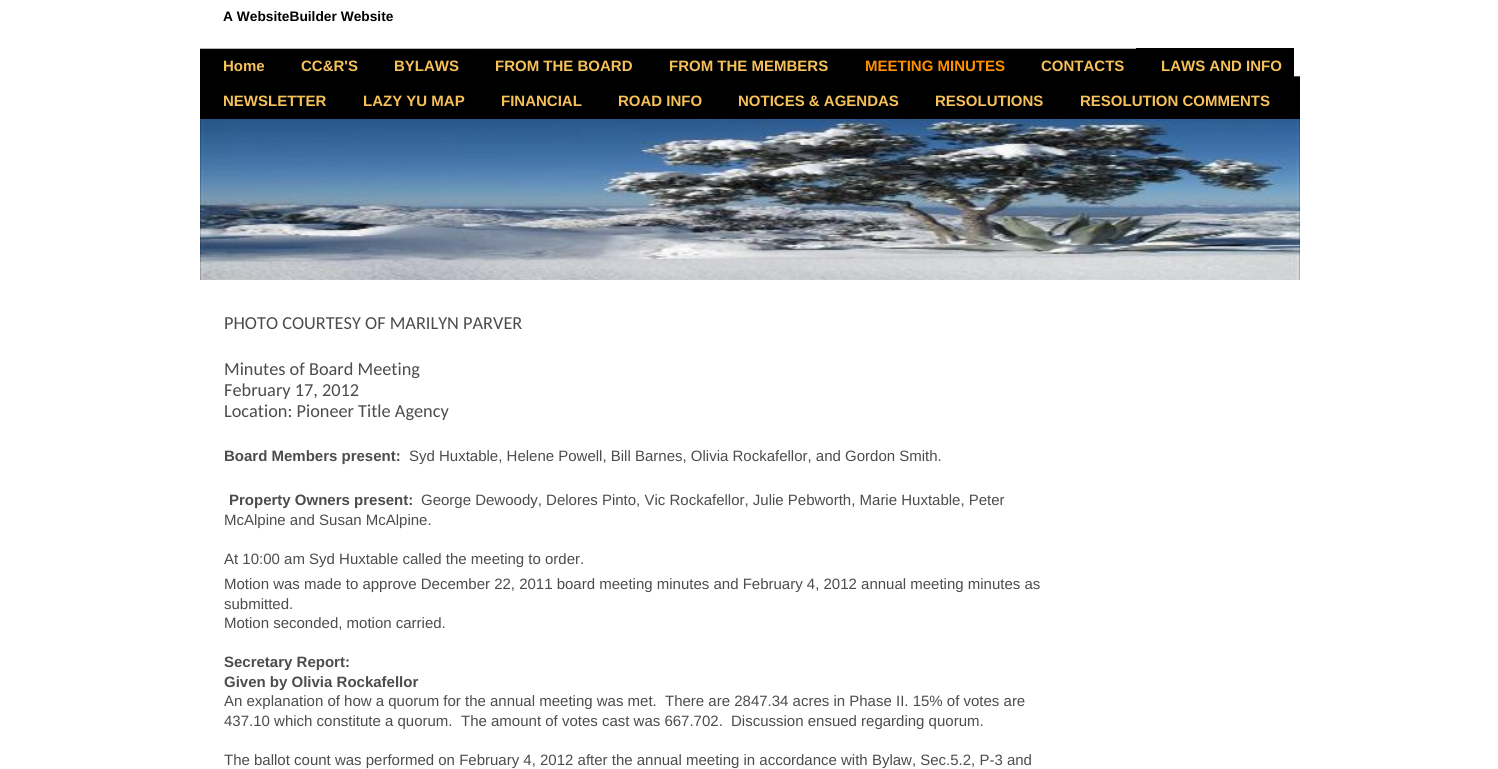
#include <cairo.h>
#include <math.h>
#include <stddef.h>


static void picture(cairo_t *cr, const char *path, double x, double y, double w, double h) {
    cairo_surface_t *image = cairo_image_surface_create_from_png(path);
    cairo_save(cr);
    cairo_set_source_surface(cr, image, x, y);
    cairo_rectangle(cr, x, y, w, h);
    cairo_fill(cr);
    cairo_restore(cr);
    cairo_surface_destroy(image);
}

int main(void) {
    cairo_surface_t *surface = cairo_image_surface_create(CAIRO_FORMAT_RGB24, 1498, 769);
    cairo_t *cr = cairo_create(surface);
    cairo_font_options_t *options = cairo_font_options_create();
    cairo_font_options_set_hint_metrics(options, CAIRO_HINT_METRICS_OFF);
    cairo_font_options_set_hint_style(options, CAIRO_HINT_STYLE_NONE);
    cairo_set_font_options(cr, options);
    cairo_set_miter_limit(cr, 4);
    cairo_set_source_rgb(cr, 1, 1, 1);
    cairo_paint(cr);
    cairo_select_font_face(cr, "Liberation Sans", CAIRO_FONT_SLANT_NORMAL, CAIRO_FONT_WEIGHT_BOLD);
    cairo_set_font_size(cr, 13.75);
    cairo_set_source_rgb(cr, 0.008, 0.008, 0.008);
    cairo_move_to(cr, 223, 21);
    cairo_show_text(cr, "A WebsiteBuilder Website");
    cairo_set_source_rgb(cr, 0, 0, 0);
    cairo_rectangle(cr, 200, 88, 1100, 31);
    cairo_fill(cr);
    picture(cr, "img1.png", 200, 48, 1100, 41);
    picture(cr, "img2.png", 200, 48, 78, 1);
    cairo_set_font_size(cr, 15);
    cairo_set_source_rgb(cr, 0.965, 0.757, 0.349);
    cairo_move_to(cr, 223, 71);
    cairo_show_text(cr, "Home");
    picture(cr, "img3.png", 277, 48, 93, 1);
    cairo_move_to(cr, 301, 71);
    cairo_show_text(cr, "CC&R'S");
    cairo_set_source_rgb(cr, 0.706, 0.706, 0.706);
    cairo_rectangle(cr, 370, 48, 101, 1);
    cairo_fill(cr);
    cairo_set_source_rgb(cr, 0.965, 0.757, 0.349);
    cairo_move_to(cr, 394, 71);
    cairo_show_text(cr, "BYLAWS");
    picture(cr, "img4.png", 471, 48, 174, 1);
    cairo_move_to(cr, 495, 71);
    cairo_show_text(cr, "FROM THE BOARD");
    cairo_set_source_rgb(cr, 0.706, 0.706, 0.706);
    cairo_rectangle(cr, 645, 48, 196, 1);
    cairo_fill(cr);
    cairo_set_source_rgb(cr, 0.965, 0.757, 0.349);
    cairo_move_to(cr, 669, 71);
    cairo_show_text(cr, "FROM THE MEMBERS");
    picture(cr, "img5.png", 841, 48, 177, 1);
    cairo_set_source_rgb(cr, 1, 0.565, 0);
    cairo_move_to(cr, 865, 71);
    cairo_show_text(cr, "MEETING MINUTES");
    picture(cr, "img6.png", 1017, 48, 119, 1);
    cairo_set_source_rgb(cr, 0.965, 0.757, 0.349);
    cairo_move_to(cr, 1041, 71);
    cairo_show_text(cr, "CONTACTS");
    cairo_set_source_rgb(cr, 0, 0, 0);
    cairo_rectangle(cr, 1136, 48, 158, 29);
    cairo_fill(cr);
    cairo_set_source_rgb(cr, 0.965, 0.757, 0.349);
    cairo_move_to(cr, 1161, 71);
    cairo_show_text(cr, "LAWS AND INFO");
    cairo_move_to(cr, 223, 106);
    cairo_show_text(cr, "NEWSLETTER");
    cairo_move_to(cr, 363, 106);
    cairo_show_text(cr, "LAZY YU MAP");
    cairo_move_to(cr, 501, 106);
    cairo_show_text(cr, "FINANCIAL");
    cairo_set_source_rgb(cr, 0, 0, 0);
    cairo_rectangle(cr, 644, 88, 10, 1);
    cairo_fill(cr);
    cairo_set_source_rgb(cr, 0.965, 0.757, 0.349);
    cairo_move_to(cr, 618, 106);
    cairo_show_text(cr, "ROAD INFO");
    cairo_move_to(cr, 738, 106);
    cairo_show_text(cr, "NOTICES & AGENDAS");
    cairo_move_to(cr, 935, 106);
    cairo_show_text(cr, "RESOLUTIONS");
    cairo_move_to(cr, 1080, 106);
    cairo_show_text(cr, "RESOLUTION COMMENTS");
    picture(cr, "img7.png", 200, 119, 1100, 161);
    cairo_select_font_face(cr, "Carlito", CAIRO_FONT_SLANT_NORMAL, CAIRO_FONT_WEIGHT_NORMAL);
    cairo_set_font_size(cr, 18.3);
    cairo_set_source_rgb(cr, 0.298, 0.298, 0.302);
    cairo_move_to(cr, 224, 329);
    cairo_show_text(cr, "PHOTO COURTESY OF MARILYN PARVER");
    cairo_move_to(cr, 224, 375);
    cairo_show_text(cr, "Minutes of Board Meeting");
    cairo_move_to(cr, 224, 396);
    cairo_show_text(cr, "February 17, 2012");
    cairo_move_to(cr, 224, 417);
    cairo_show_text(cr, "Location: Pioneer Title Agency");
    cairo_select_font_face(cr, "Liberation Sans", CAIRO_FONT_SLANT_NORMAL, CAIRO_FONT_WEIGHT_BOLD);
    cairo_set_font_size(cr, 15);
    cairo_move_to(cr, 224, 461);
    cairo_show_text(cr, "Board Members present:");
    cairo_select_font_face(cr, "Liberation Sans", CAIRO_FONT_SLANT_NORMAL, CAIRO_FONT_WEIGHT_NORMAL);
    cairo_move_to(cr, 409, 461);
    cairo_show_text(cr, "Syd Huxtable, Helene Powell, Bill Barnes, Olivia Rockafellor, and Gordon Smith.");
    cairo_select_font_face(cr, "Liberation Sans", CAIRO_FONT_SLANT_NORMAL, CAIRO_FONT_WEIGHT_BOLD);
    cairo_move_to(cr, 229, 505);
    cairo_show_text(cr, "Property Owners present:");
    cairo_select_font_face(cr, "Liberation Sans", CAIRO_FONT_SLANT_NORMAL, CAIRO_FONT_WEIGHT_NORMAL);
    cairo_move_to(cr, 421, 505);
    cairo_show_text(cr, "George Dewoody, Delores Pinto, Vic Rockafellor, Julie Pebworth, Marie Huxtable, Peter");
    cairo_move_to(cr, 224, 525);
    cairo_show_text(cr, "McAlpine and Susan McAlpine.");
    cairo_move_to(cr, 224, 564);
    cairo_show_text(cr, "At 10:00 am Syd Huxtable called the meeting to order.");
    cairo_move_to(cr, 224, 589);
    cairo_show_text(cr, "Motion was made to approve December 22, 2011 board meeting minutes and February 4, 2012 annual meeting minutes as");
    cairo_move_to(cr, 224, 609);
    cairo_show_text(cr, "submitted.");
    cairo_move_to(cr, 224, 628);
    cairo_show_text(cr, "Motion seconded, motion carried.");
    cairo_select_font_face(cr, "Liberation Sans", CAIRO_FONT_SLANT_NORMAL, CAIRO_FONT_WEIGHT_BOLD);
    cairo_move_to(cr, 224, 667);
    cairo_show_text(cr, "Secretary Report:");
    cairo_move_to(cr, 224, 687);
    cairo_show_text(cr, "Given by Olivia Rockafellor");
    cairo_select_font_face(cr, "Liberation Sans", CAIRO_FONT_SLANT_NORMAL, CAIRO_FONT_WEIGHT_NORMAL);
    cairo_move_to(cr, 224, 706);
    cairo_show_text(cr, "An explanation of how a quorum for the annual meeting was met.");
    cairo_move_to(cr, 665, 706);
    cairo_show_text(cr, "There are 2847.34 acres in Phase II. 15% of votes are");
    cairo_move_to(cr, 224, 726);
    cairo_show_text(cr, "437.10 which constitute a quorum.");
    cairo_move_to(cr, 461, 726);
    cairo_show_text(cr, "The amount of votes cast was 667.702.");
    cairo_move_to(cr, 731, 726);
    cairo_show_text(cr, "Discussion ensued regarding quorum.");
    cairo_move_to(cr, 224, 765);
    cairo_show_text(cr, "The ballot count was performed on February 4, 2012 after the annual meeting in accordance with Bylaw, Sec.5.2, P-3 and");
    cairo_surface_write_to_png(surface, "page.png");
    cairo_font_options_destroy(options);
    cairo_destroy(cr);
    cairo_surface_destroy(surface);
    return 0;
}
